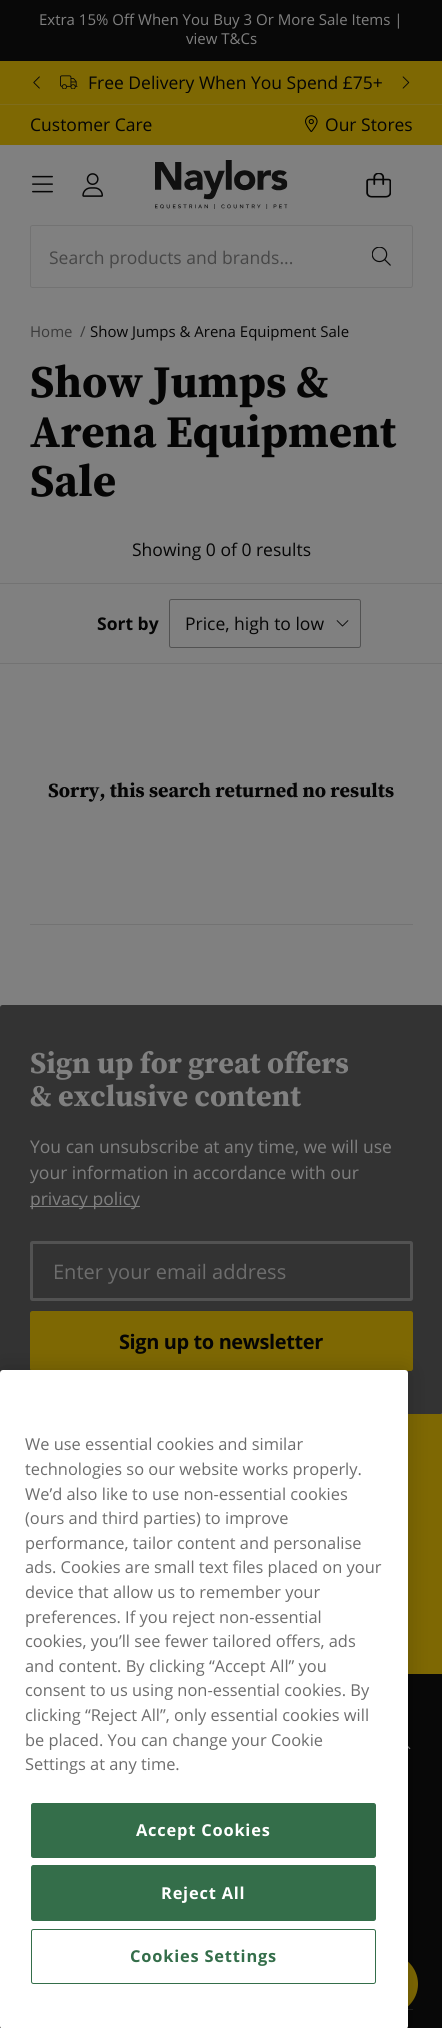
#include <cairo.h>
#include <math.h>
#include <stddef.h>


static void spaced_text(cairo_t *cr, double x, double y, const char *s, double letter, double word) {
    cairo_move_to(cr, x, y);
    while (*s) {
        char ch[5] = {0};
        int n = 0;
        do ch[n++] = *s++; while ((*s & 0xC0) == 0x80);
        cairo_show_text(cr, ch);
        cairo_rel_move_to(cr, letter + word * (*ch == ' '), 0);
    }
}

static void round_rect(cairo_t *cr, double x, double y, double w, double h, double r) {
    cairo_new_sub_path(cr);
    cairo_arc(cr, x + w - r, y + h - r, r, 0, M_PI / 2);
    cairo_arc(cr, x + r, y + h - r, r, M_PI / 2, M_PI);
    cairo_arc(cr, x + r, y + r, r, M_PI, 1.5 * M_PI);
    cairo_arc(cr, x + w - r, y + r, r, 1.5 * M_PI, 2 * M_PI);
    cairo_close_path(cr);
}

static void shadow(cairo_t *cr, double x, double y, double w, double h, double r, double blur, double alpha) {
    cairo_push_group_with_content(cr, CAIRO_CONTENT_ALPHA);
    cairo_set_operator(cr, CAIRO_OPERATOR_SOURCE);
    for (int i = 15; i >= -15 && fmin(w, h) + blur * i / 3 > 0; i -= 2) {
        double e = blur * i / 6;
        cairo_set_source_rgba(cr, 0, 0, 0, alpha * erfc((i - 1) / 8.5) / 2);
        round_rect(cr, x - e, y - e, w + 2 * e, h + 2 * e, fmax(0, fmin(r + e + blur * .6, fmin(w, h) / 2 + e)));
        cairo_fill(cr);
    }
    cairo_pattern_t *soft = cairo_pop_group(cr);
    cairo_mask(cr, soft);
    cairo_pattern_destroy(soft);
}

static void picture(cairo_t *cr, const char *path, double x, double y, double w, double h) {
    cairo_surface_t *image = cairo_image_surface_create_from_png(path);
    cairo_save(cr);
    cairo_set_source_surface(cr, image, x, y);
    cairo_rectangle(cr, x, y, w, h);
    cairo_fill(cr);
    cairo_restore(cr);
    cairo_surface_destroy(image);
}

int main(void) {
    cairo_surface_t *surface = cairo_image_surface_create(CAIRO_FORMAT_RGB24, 442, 2028);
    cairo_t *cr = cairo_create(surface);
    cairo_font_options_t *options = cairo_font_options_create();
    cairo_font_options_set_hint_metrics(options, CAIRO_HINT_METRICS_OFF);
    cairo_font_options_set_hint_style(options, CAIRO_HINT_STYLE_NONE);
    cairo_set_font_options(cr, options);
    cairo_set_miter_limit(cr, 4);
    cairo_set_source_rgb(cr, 0.502, 0.502, 0.502);
    cairo_paint(cr);
    cairo_set_source_rgb(cr, 0.035, 0.035, 0.035);
    cairo_rectangle(cr, 0, 0, 442, 61);
    cairo_fill(cr);
    cairo_select_font_face(cr, "Open Sans", CAIRO_FONT_SLANT_NORMAL, CAIRO_FONT_WEIGHT_NORMAL);
    cairo_set_font_size(cr, 15);
    cairo_set_source_rgb(cr, 0.502, 0.502, 0.502);
    cairo_move_to(cr, 39, 25);
    cairo_show_text(cr, "Extra 15% Off When You Buy 3 Or More Sale Items |");
    cairo_move_to(cr, 186, 44);
    cairo_show_text(cr, "view T&Cs");
    cairo_set_source_rgb(cr, 0.494, 0.408, 0.012);
    cairo_rectangle(cr, 0, 61, 442, 84);
    cairo_fill(cr);
    picture(cr, "img1.png", 60, 75, 18, 14);
    cairo_save(cr);
    cairo_rectangle(cr, 30, 73, 383, 20);
    cairo_clip(cr);
    cairo_set_font_size(cr, 17.5);
    cairo_set_source_rgb(cr, 0.02, 0.02, 0.02);
    cairo_move_to(cr, 88, 89);
    cairo_show_text(cr, "Free Delivery When You Spend £75+");
    cairo_restore(cr);
    picture(cr, "img2.png", 33, 76, 7, 13);
    picture(cr, "img3.png", 402, 76, 8, 13);
    cairo_set_source_rgb(cr, 0.498, 0.427, 0.11);
    cairo_rectangle(cr, 0, 104, 442, 1);
    cairo_fill(cr);
    cairo_set_font_size(cr, 17.5);
    cairo_set_source_rgb(cr, 0.02, 0.02, 0.02);
    cairo_move_to(cr, 30, 131);
    cairo_show_text(cr, "Customer Care");
    picture(cr, "img4.png", 305, 115, 13, 17);
    cairo_move_to(cr, 325, 131);
    cairo_show_text(cr, "Our Stores");
    picture(cr, "img5.png", 32, 175, 21, 18);
    picture(cr, "img6.png", 82, 173, 21, 24);
    picture(cr, "img7.png", 155, 160, 133, 49);
    picture(cr, "img8.png", 366, 173, 25, 25);
    round_rect(cr, 30.5, 225.5, 382, 62, 2);
    cairo_set_source_rgb(cr, 0.451, 0.451, 0.451);
    cairo_set_line_width(cr, 1);
    cairo_stroke(cr);
    cairo_set_source_rgb(cr, 0.275, 0.275, 0.275);
    cairo_move_to(cr, 49, 264);
    cairo_show_text(cr, "Search products and brands...");
    picture(cr, "img9.png", 372, 247, 19, 19);
    cairo_set_font_size(cr, 15);
    cairo_set_source_rgb(cr, 0.227, 0.227, 0.227);
    cairo_move_to(cr, 30, 337);
    cairo_show_text(cr, "Home");
    cairo_move_to(cr, 80, 337);
    cairo_show_text(cr, "/");
    cairo_set_source_rgb(cr, 0.02, 0.02, 0.02);
    cairo_move_to(cr, 90, 337);
    cairo_show_text(cr, "Show Jumps & Arena Equipment Sale");
    cairo_select_font_face(cr, "Source Serif Pro", CAIRO_FONT_SLANT_NORMAL, CAIRO_FONT_WEIGHT_BOLD);
    cairo_set_font_size(cr, 45);
    cairo_move_to(cr, 30, 397);
    cairo_show_text(cr, "Show Jumps &");
    cairo_move_to(cr, 30, 447);
    cairo_show_text(cr, "Arena Equipment");
    cairo_move_to(cr, 30, 496);
    cairo_show_text(cr, "Sale");
    cairo_select_font_face(cr, "Open Sans", CAIRO_FONT_SLANT_NORMAL, CAIRO_FONT_WEIGHT_NORMAL);
    cairo_set_font_size(cr, 17.5);
    cairo_move_to(cr, 132, 556);
    cairo_show_text(cr, "Showing 0 of 0 results");
    cairo_set_source_rgb(cr, 0.451, 0.451, 0.451);
    cairo_rectangle(cr, 0, 583, 442, 1);
    cairo_fill(cr);
    cairo_rectangle(cr, 0, 663, 442, 1);
    cairo_fill(cr);
    cairo_select_font_face(cr, "Open Sans", CAIRO_FONT_SLANT_NORMAL, CAIRO_FONT_WEIGHT_BOLD);
    cairo_set_source_rgb(cr, 0.02, 0.02, 0.02);
    cairo_move_to(cr, 97, 630);
    cairo_show_text(cr, "Sort by");
    round_rect(cr, 169.5, 599.5, 191, 48, 2);
    cairo_set_source_rgb(cr, 0.322, 0.322, 0.322);
    cairo_stroke(cr);
    cairo_select_font_face(cr, "Open Sans", CAIRO_FONT_SLANT_NORMAL, CAIRO_FONT_WEIGHT_NORMAL);
    cairo_set_source_rgb(cr, 0.02, 0.02, 0.02);
    cairo_move_to(cr, 185, 630);
    cairo_show_text(cr, "Price, high to low");
    picture(cr, "img10.png", 336, 620, 13, 7);
    cairo_select_font_face(cr, "Source Serif Pro", CAIRO_FONT_SLANT_NORMAL, CAIRO_FONT_WEIGHT_BOLD);
    cairo_set_font_size(cr, 20);
    cairo_move_to(cr, 48, 797);
    cairo_show_text(cr, "Sorry, this search returned no results");
    cairo_set_source_rgb(cr, 0.451, 0.451, 0.451);
    cairo_rectangle(cr, 30, 924, 383, 1);
    cairo_fill(cr);
    cairo_set_source_rgb(cr, 0.2, 0.2, 0.2);
    round_rect(cr, 0, 1005, 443, 409, 2.5);
    cairo_fill(cr);
    cairo_set_font_size(cr, 30);
    cairo_set_source_rgb(cr, 0.502, 0.502, 0.502);
    cairo_move_to(cr, 30, 1073);
    cairo_show_text(cr, "Sign up for great offers");
    cairo_move_to(cr, 30, 1106);
    cairo_show_text(cr, "& exclusive content");
    cairo_select_font_face(cr, "Open Sans", CAIRO_FONT_SLANT_NORMAL, CAIRO_FONT_WEIGHT_NORMAL);
    cairo_set_font_size(cr, 17.5);
    cairo_move_to(cr, 30, 1153);
    cairo_show_text(cr, "You can unsubscribe at any time, we will use");
    cairo_move_to(cr, 30, 1179);
    cairo_show_text(cr, "your information in accordance with our");
    cairo_rectangle(cr, 30, 1206, 110, 1);
    cairo_fill(cr);
    cairo_move_to(cr, 30, 1205);
    cairo_show_text(cr, "privacy policy");
    round_rect(cr, 31.5, 1242.5, 380, 57, 1);
    cairo_set_source_rgb(cr, 0.322, 0.322, 0.322);
    cairo_set_line_width(cr, 3);
    cairo_stroke(cr);
    cairo_set_font_size(cr, 20);
    cairo_set_source_rgb(cr, 0.427, 0.427, 0.427);
    cairo_move_to(cr, 53, 1279);
    cairo_show_text(cr, "Enter your email address");
    cairo_set_source_rgb(cr, 0.494, 0.408, 0.012);
    round_rect(cr, 30.5, 1311.5, 382, 59, 2);
    cairo_fill_preserve(cr);
    cairo_set_line_width(cr, 1);
    cairo_stroke(cr);
    cairo_select_font_face(cr, "Open Sans", CAIRO_FONT_SLANT_NORMAL, CAIRO_FONT_WEIGHT_BOLD);
    cairo_set_source_rgb(cr, 0.02, 0.02, 0.02);
    spaced_text(cr, 119, 1349, "Sign up to newsletter", -0.4, 0);
    cairo_set_source_rgb(cr, 0.494, 0.408, 0.012);
    cairo_rectangle(cr, 408, 1414, 34, 260);
    cairo_fill(cr);
    cairo_set_source_rgb(cr, 0.035, 0.035, 0.035);
    cairo_rectangle(cr, 408, 1674, 34, 30);
    cairo_fill(cr);
    cairo_rectangle(cr, 0, 1704, 442, 324);
    cairo_fill(cr);
    cairo_set_source_rgb(cr, 0.125, 0.125, 0.125);
    cairo_rectangle(cr, 408, 2009, 5, 1);
    cairo_fill(cr);
    picture(cr, "img11.png", 408, 1746, 3, 4);
    cairo_set_source_rgb(cr, 0.494, 0.408, 0.012);
    cairo_arc(cr, 388, 1984, 30, 0, 2 * M_PI);
    cairo_fill(cr);
    cairo_set_source_rgb(cr, 0, 0, 0);
    shadow(cr, 0, 1370, 408, 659, 3, 11, 0.2);
    cairo_set_source_rgb(cr, 1, 1, 1);
    round_rect(cr, 0, 1370, 408, 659, 3);
    cairo_fill(cr);
    cairo_select_font_face(cr, "Open Sans", CAIRO_FONT_SLANT_NORMAL, CAIRO_FONT_WEIGHT_NORMAL);
    cairo_set_font_size(cr, 16.4);
    cairo_set_source_rgb(cr, 0.427, 0.427, 0.427);
    cairo_move_to(cr, 25, 1450);
    cairo_show_text(cr, "We use essential cookies and similar");
    cairo_move_to(cr, 25, 1475);
    cairo_show_text(cr, "technologies so our website works properly.");
    cairo_move_to(cr, 25, 1500);
    cairo_show_text(cr, "We’d also like to use non-essential cookies");
    cairo_move_to(cr, 25, 1524);
    cairo_show_text(cr, "(ours and third parties) to improve");
    cairo_move_to(cr, 25, 1549);
    cairo_show_text(cr, "performance, tailor content and personalise");
    cairo_move_to(cr, 25, 1573);
    cairo_show_text(cr, "ads. Cookies are small text files placed on your");
    cairo_move_to(cr, 25, 1598);
    cairo_show_text(cr, "device that allow us to remember your");
    cairo_move_to(cr, 25, 1623);
    cairo_show_text(cr, "preferences. If you reject non-essential");
    cairo_move_to(cr, 25, 1647);
    cairo_show_text(cr, "cookies, you’ll see fewer tailored offers, ads");
    cairo_move_to(cr, 25, 1672);
    cairo_show_text(cr, "and content. By clicking “Accept All” you");
    cairo_move_to(cr, 25, 1696);
    cairo_show_text(cr, "consent to us using non-essential cookies. By");
    cairo_move_to(cr, 25, 1721);
    cairo_show_text(cr, "clicking “Reject All”, only essential cookies will");
    cairo_move_to(cr, 25, 1746);
    cairo_show_text(cr, "be placed. You can change your Cookie");
    cairo_move_to(cr, 25, 1770);
    cairo_show_text(cr, "Settings at any time.");
    cairo_set_source_rgb(cr, 0.204, 0.431, 0.29);
    round_rect(cr, 31.5, 1803.5, 344, 54, 2);
    cairo_fill_preserve(cr);
    cairo_stroke(cr);
    cairo_select_font_face(cr, "Open Sans", CAIRO_FONT_SLANT_NORMAL, CAIRO_FONT_WEIGHT_BOLD);
    cairo_set_source_rgb(cr, 1, 1, 1);
    spaced_text(cr, 136, 1836, "Accept Cookies", 0.8, 0);
    cairo_set_source_rgb(cr, 0.204, 0.431, 0.29);
    round_rect(cr, 31.5, 1865.5, 344, 55, 2);
    cairo_fill_preserve(cr);
    cairo_stroke(cr);
    cairo_set_source_rgb(cr, 1, 1, 1);
    spaced_text(cr, 161, 1899, "Reject All", 0.8, 0);
    round_rect(cr, 31.5, 1929.5, 344, 54, 2);
    cairo_set_source_rgb(cr, 0.204, 0.431, 0.29);
    cairo_stroke(cr);
    spaced_text(cr, 130, 1962, "Cookies Settings", 0.8, 0);
    cairo_surface_write_to_png(surface, "page.png");
    cairo_font_options_destroy(options);
    cairo_destroy(cr);
    cairo_surface_destroy(surface);
    return 0;
}
